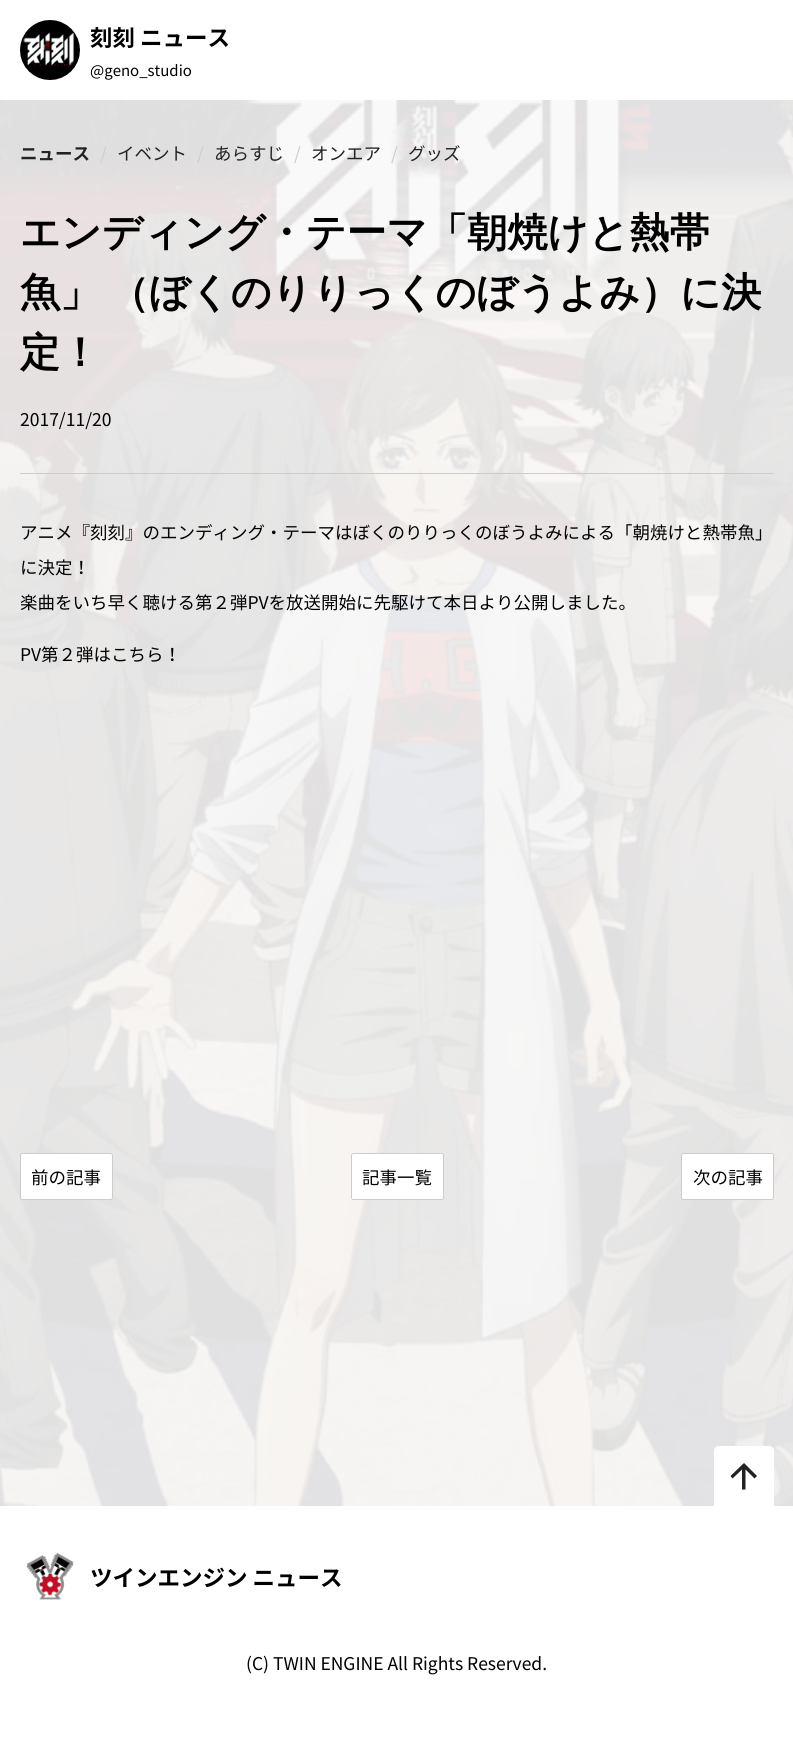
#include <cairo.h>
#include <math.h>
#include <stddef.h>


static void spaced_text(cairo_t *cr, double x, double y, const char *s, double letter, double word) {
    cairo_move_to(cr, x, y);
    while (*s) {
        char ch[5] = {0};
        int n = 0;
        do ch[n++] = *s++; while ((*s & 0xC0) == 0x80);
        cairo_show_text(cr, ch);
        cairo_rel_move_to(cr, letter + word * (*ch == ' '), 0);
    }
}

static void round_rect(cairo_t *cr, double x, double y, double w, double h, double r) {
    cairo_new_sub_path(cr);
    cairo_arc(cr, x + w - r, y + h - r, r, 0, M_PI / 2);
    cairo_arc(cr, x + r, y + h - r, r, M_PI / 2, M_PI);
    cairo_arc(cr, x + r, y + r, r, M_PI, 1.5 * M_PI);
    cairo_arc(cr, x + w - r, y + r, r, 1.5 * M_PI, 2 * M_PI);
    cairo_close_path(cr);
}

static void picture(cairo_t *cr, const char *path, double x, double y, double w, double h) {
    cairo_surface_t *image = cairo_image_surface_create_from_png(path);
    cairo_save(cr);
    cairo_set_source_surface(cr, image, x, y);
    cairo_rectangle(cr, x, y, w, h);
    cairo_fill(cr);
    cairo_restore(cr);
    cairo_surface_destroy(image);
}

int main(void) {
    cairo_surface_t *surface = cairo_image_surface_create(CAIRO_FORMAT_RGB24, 793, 1756);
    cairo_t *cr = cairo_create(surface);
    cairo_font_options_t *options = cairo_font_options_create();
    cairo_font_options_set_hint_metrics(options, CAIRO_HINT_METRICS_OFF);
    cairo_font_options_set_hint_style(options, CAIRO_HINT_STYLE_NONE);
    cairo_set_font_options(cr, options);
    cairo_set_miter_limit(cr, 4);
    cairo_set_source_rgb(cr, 0.969, 0.969, 0.969);
    cairo_paint(cr);
    cairo_set_source_rgb(cr, 1, 1, 1);
    cairo_rectangle(cr, 0, 0, 793, 100);
    cairo_fill(cr);
    picture(cr, "img1.png", 20, 20, 60, 60);
    cairo_select_font_face(cr, "Noto Sans JP", CAIRO_FONT_SLANT_NORMAL, CAIRO_FONT_WEIGHT_BOLD);
    cairo_set_font_size(cr, 22.5);
    cairo_set_source_rgb(cr, 0, 0, 0);
    cairo_move_to(cr, 90, 46);
    cairo_show_text(cr, "刻刻 ニュース");
    cairo_select_font_face(cr, "Noto Sans JP", CAIRO_FONT_SLANT_NORMAL, CAIRO_FONT_WEIGHT_NORMAL);
    cairo_set_font_size(cr, 15);
    cairo_move_to(cr, 90, 76);
    cairo_show_text(cr, "@geno_studio");
    picture(cr, "img2.png", 0, 100, 793, 1406);
    cairo_select_font_face(cr, "Noto Sans JP", CAIRO_FONT_SLANT_NORMAL, CAIRO_FONT_WEIGHT_BOLD);
    cairo_set_font_size(cr, 17.5);
    cairo_set_source_rgb(cr, 0.133, 0.133, 0.133);
    cairo_move_to(cr, 20, 160);
    cairo_show_text(cr, "ニュース");
    cairo_select_font_face(cr, "Noto Sans JP", CAIRO_FONT_SLANT_NORMAL, CAIRO_FONT_WEIGHT_NORMAL);
    cairo_set_source_rgb(cr, 0.8, 0.8, 0.8);
    cairo_move_to(cr, 100, 160);
    cairo_show_text(cr, "/");
    cairo_set_source_rgb(cr, 0.133, 0.133, 0.133);
    cairo_move_to(cr, 117, 160);
    cairo_show_text(cr, "イベント");
    cairo_set_source_rgb(cr, 0.8, 0.8, 0.8);
    cairo_move_to(cr, 197, 160);
    cairo_show_text(cr, "/");
    cairo_set_source_rgb(cr, 0.133, 0.133, 0.133);
    cairo_move_to(cr, 214, 160);
    cairo_show_text(cr, "あらすじ");
    cairo_set_source_rgb(cr, 0.8, 0.8, 0.8);
    cairo_move_to(cr, 294, 160);
    cairo_show_text(cr, "/");
    cairo_set_source_rgb(cr, 0.133, 0.133, 0.133);
    cairo_move_to(cr, 311, 160);
    cairo_show_text(cr, "オンエア");
    cairo_set_source_rgb(cr, 0.8, 0.8, 0.8);
    cairo_move_to(cr, 391, 160);
    cairo_show_text(cr, "/");
    cairo_set_source_rgb(cr, 0.133, 0.133, 0.133);
    cairo_move_to(cr, 408, 160);
    cairo_show_text(cr, "グッズ");
    cairo_select_font_face(cr, "WenQuanYi Zen Hei", CAIRO_FONT_SLANT_NORMAL, CAIRO_FONT_WEIGHT_BOLD);
    cairo_set_font_size(cr, 40);
    cairo_set_source_rgb(cr, 0, 0, 0);
    cairo_move_to(cr, 20, 246);
    cairo_show_text(cr, "エンディング・テーマ「朝焼けと熱帯");
    spaced_text(cr, 20, 306, "魚」 （ぼくのりりっくのぼうよみ）に決", 0, -3);
    cairo_move_to(cr, 20, 366);
    cairo_show_text(cr, "定！");
    cairo_select_font_face(cr, "Noto Sans JP", CAIRO_FONT_SLANT_NORMAL, CAIRO_FONT_WEIGHT_NORMAL);
    cairo_set_font_size(cr, 17.5);
    cairo_move_to(cr, 20, 426);
    cairo_show_text(cr, "2017/11/20");
    cairo_set_source_rgb(cr, 0.8, 0.8, 0.8);
    cairo_rectangle(cr, 20, 473, 754, 1);
    cairo_fill(cr);
    cairo_set_source_rgb(cr, 0, 0, 0);
    cairo_move_to(cr, 20, 539);
    cairo_show_text(cr, "アニメ『刻刻』のエンディング・テーマはぼくのりりっくのぼうよみによる「朝焼けと熱帯魚」");
    cairo_move_to(cr, 20, 574);
    cairo_show_text(cr, "に決定！");
    cairo_move_to(cr, 20, 609);
    cairo_show_text(cr, "楽曲をいち早く聴ける第２弾PVを放送開始に先駆けて本日より公開しました。");
    cairo_move_to(cr, 20, 661);
    cairo_show_text(cr, "PV第２弾はこちら！");
    cairo_set_source_rgb(cr, 1, 1, 1);
    round_rect(cr, 20.5, 1153.5, 92, 46, 2);
    cairo_fill_preserve(cr);
    cairo_set_source_rgb(cr, 0.8, 0.8, 0.8);
    cairo_set_line_width(cr, 1);
    cairo_stroke(cr);
    cairo_set_source_rgb(cr, 0, 0, 0);
    cairo_move_to(cr, 31, 1184);
    cairo_show_text(cr, "前の記事");
    cairo_set_source_rgb(cr, 1, 1, 1);
    round_rect(cr, 351.5, 1153.5, 92, 46, 2);
    cairo_fill_preserve(cr);
    cairo_set_source_rgb(cr, 0.8, 0.8, 0.8);
    cairo_stroke(cr);
    cairo_set_source_rgb(cr, 0, 0, 0);
    cairo_move_to(cr, 362, 1184);
    cairo_show_text(cr, "記事一覧");
    cairo_set_source_rgb(cr, 1, 1, 1);
    round_rect(cr, 681.5, 1153.5, 92, 46, 2);
    cairo_fill_preserve(cr);
    cairo_set_source_rgb(cr, 0.8, 0.8, 0.8);
    cairo_stroke(cr);
    cairo_set_source_rgb(cr, 0, 0, 0);
    cairo_move_to(cr, 693, 1184);
    cairo_show_text(cr, "次の記事");
    cairo_set_source_rgb(cr, 1, 1, 1);
    cairo_rectangle(cr, 0, 1506, 793, 250);
    cairo_fill(cr);
    cairo_new_path(cr);
    cairo_move_to(cr, 719, 1446);
    cairo_line_to(cr, 769, 1446);
    cairo_curve_to(cr, 772, 1446, 774, 1448, 774, 1451);
    cairo_line_to(cr, 774, 1506);
    cairo_line_to(cr, 714, 1506);
    cairo_line_to(cr, 714, 1451);
    cairo_curve_to(cr, 714, 1448, 716, 1446, 719, 1446);
    cairo_close_path(cr);
    cairo_fill(cr);
    cairo_set_source_rgb(cr, 0.133, 0.133, 0.133);
    cairo_new_path(cr);
    cairo_move_to(cr, 730.5, 1476);
    cairo_line_to(cr, 744, 1463);
    cairo_line_to(cr, 757, 1476);
    cairo_line_to(cr, 754.5, 1478.5);
    cairo_line_to(cr, 745.5, 1469.5);
    cairo_line_to(cr, 745.5, 1489.5);
    cairo_line_to(cr, 742, 1489.5);
    cairo_line_to(cr, 742, 1469.5);
    cairo_line_to(cr, 732.5, 1478.5);
    cairo_close_path(cr);
    cairo_fill(cr);
    picture(cr, "img3.png", 26, 1553, 48, 47);
    cairo_select_font_face(cr, "Noto Sans JP", CAIRO_FONT_SLANT_NORMAL, CAIRO_FONT_WEIGHT_BOLD);
    cairo_set_font_size(cr, 22.5);
    cairo_set_source_rgb(cr, 0, 0, 0);
    cairo_move_to(cr, 90, 1586);
    cairo_show_text(cr, "ツインエンジン ニュース");
    cairo_select_font_face(cr, "Noto Sans JP", CAIRO_FONT_SLANT_NORMAL, CAIRO_FONT_WEIGHT_NORMAL);
    cairo_set_font_size(cr, 17.5);
    cairo_move_to(cr, 246, 1670);
    cairo_show_text(cr, "(C) TWIN ENGINE All Rights Reserved.");
    cairo_surface_write_to_png(surface, "page.png");
    cairo_font_options_destroy(options);
    cairo_destroy(cr);
    cairo_surface_destroy(surface);
    return 0;
}
